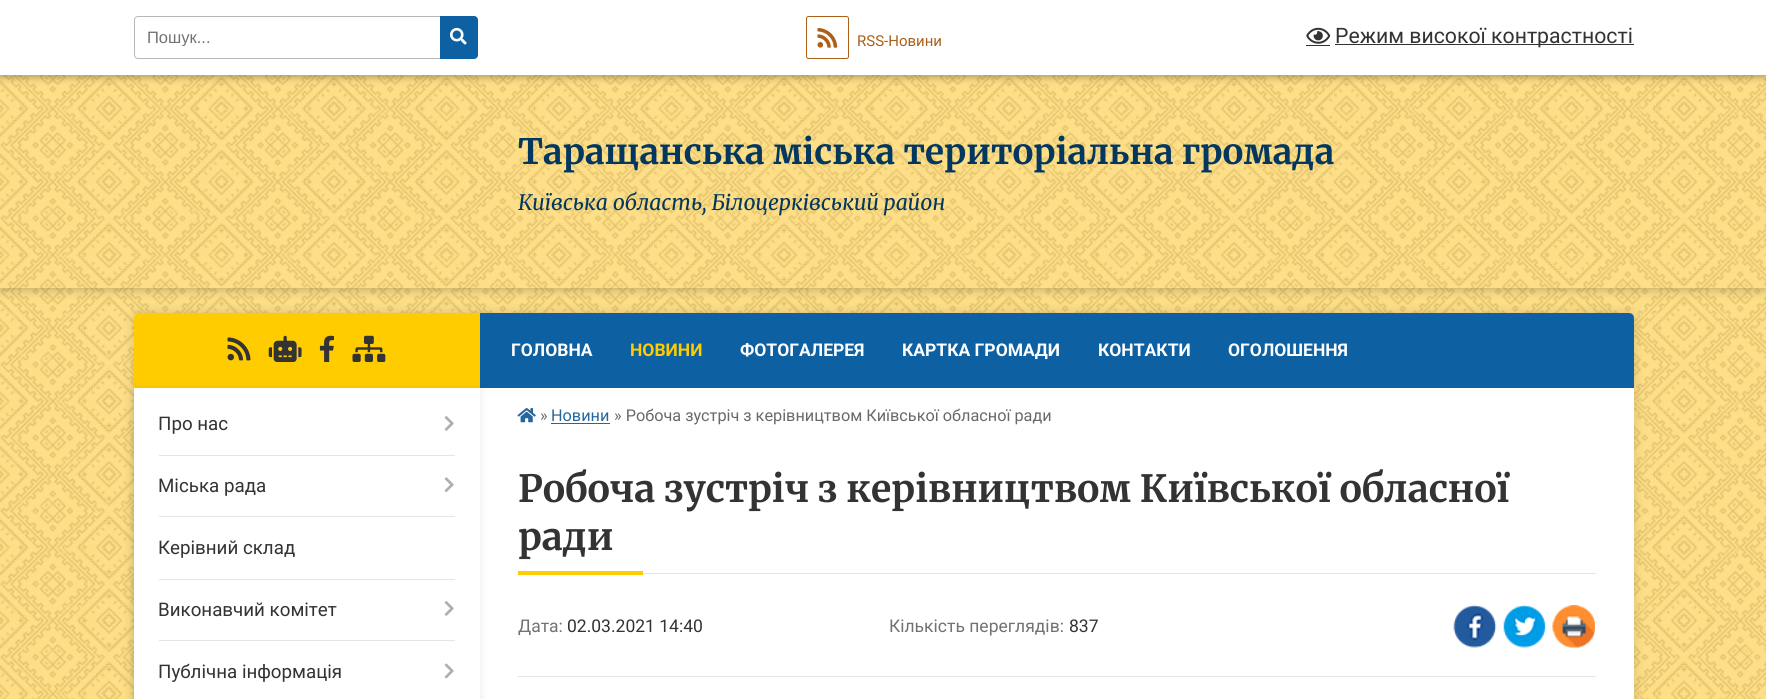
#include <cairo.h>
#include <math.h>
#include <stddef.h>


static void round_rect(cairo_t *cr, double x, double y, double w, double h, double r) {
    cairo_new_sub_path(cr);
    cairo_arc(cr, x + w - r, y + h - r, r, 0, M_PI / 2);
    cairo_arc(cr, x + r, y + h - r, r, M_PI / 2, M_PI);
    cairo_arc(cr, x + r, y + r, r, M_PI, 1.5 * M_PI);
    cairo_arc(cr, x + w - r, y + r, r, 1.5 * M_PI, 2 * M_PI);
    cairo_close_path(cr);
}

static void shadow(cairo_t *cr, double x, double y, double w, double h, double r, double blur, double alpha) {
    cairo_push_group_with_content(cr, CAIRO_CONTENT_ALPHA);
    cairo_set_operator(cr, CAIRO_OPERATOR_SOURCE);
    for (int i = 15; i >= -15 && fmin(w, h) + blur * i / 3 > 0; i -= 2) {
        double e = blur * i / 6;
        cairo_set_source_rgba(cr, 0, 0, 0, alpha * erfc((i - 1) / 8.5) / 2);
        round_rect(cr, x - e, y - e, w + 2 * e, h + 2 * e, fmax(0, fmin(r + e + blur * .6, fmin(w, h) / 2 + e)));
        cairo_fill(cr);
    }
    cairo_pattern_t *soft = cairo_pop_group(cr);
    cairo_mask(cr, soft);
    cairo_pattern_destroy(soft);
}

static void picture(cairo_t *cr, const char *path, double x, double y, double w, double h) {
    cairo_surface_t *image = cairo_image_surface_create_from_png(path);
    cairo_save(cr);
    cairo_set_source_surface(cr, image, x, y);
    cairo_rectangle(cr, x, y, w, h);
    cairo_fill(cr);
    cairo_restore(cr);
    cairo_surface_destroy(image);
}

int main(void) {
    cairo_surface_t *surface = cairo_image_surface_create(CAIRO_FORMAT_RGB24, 1766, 699);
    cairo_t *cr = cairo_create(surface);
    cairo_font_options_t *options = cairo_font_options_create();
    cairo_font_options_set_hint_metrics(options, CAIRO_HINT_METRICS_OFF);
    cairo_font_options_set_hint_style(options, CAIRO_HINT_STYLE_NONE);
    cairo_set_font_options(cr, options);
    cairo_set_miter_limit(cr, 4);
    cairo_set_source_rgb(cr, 1, 0.855, 0.459);
    cairo_paint(cr);
    picture(cr, "img1.png", 0, 75, 1766, 624);
    cairo_set_source_rgb(cr, 0, 0, 0);
    shadow(cr, 0, 1, 1766, 75, 0, 4.5, 0.4);
    cairo_save(cr);
    cairo_set_fill_rule(cr, CAIRO_FILL_RULE_EVEN_ODD);
    cairo_new_path(cr);
    cairo_move_to(cr, 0, 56);
    cairo_line_to(cr, 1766, 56);
    cairo_line_to(cr, 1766, 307);
    cairo_line_to(cr, 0, 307);
    cairo_close_path(cr);
    cairo_move_to(cr, 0, 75);
    cairo_line_to(cr, 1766, 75);
    cairo_line_to(cr, 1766, 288);
    cairo_line_to(cr, 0, 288);
    cairo_close_path(cr);
    cairo_clip(cr);
    shadow(cr, 0, 75, 1766, 213, 0, 6, 0.3);
    cairo_restore(cr);
    cairo_set_source_rgb(cr, 1, 1, 1);
    cairo_rectangle(cr, 0, 0, 1766, 75);
    cairo_fill(cr);
    round_rect(cr, 134.5, 16.5, 343, 42, 3.5);
    cairo_set_source_rgb(cr, 0.718, 0.718, 0.718);
    cairo_set_line_width(cr, 1);
    cairo_stroke(cr);
    cairo_save(cr);
    cairo_rectangle(cr, 148, 28, 278, 18);
    cairo_clip(cr);
    cairo_select_font_face(cr, "Liberation Sans", CAIRO_FONT_SLANT_NORMAL, CAIRO_FONT_WEIGHT_NORMAL);
    cairo_set_font_size(cr, 16.5);
    cairo_set_source_rgb(cr, 0.447, 0.447, 0.447);
    cairo_move_to(cr, 147, 43);
    cairo_show_text(cr, "Пошук...");
    cairo_restore(cr);
    cairo_set_source_rgb(cr, 0.051, 0.38, 0.635);
    cairo_new_path(cr);
    cairo_move_to(cr, 440, 16);
    cairo_line_to(cr, 474, 16);
    cairo_curve_to(cr, 476, 16, 478, 18, 478, 20);
    cairo_line_to(cr, 478, 55);
    cairo_curve_to(cr, 478, 57, 476, 59, 474, 59);
    cairo_line_to(cr, 440, 59);
    cairo_close_path(cr);
    cairo_fill(cr);
    picture(cr, "img2.png", 450, 27, 17, 18);
    round_rect(cr, 806.5, 16.5, 42, 42, 2);
    cairo_set_source_rgb(cr, 0.671, 0.373, 0.09);
    cairo_stroke(cr);
    picture(cr, "img3.png", 817, 28, 21, 20);
    cairo_select_font_face(cr, "Roboto", CAIRO_FONT_SLANT_NORMAL, CAIRO_FONT_WEIGHT_NORMAL);
    cairo_set_font_size(cr, 15);
    cairo_move_to(cr, 857, 46);
    cairo_show_text(cr, "RSS-Новини");
    picture(cr, "img4.png", 1306, 27, 25, 17);
    cairo_set_source_rgb(cr, 0.2, 0.2, 0.2);
    cairo_rectangle(cr, 1306, 45, 24, 1);
    cairo_fill(cr);
    cairo_rectangle(cr, 1335, 44, 299, 1);
    cairo_fill(cr);
    cairo_set_font_size(cr, 21.25);
    cairo_move_to(cr, 1335, 43);
    cairo_show_text(cr, "Режим високої контрастності");
    cairo_select_font_face(cr, "Merriweather Light", CAIRO_FONT_SLANT_NORMAL, CAIRO_FONT_WEIGHT_NORMAL);
    cairo_set_font_size(cr, 35);
    cairo_set_source_rgb(cr, 0.008, 0.216, 0.373);
    cairo_move_to(cr, 518, 164);
    cairo_show_text(cr, "Таращанська міська територіальна громада");
    cairo_select_font_face(cr, "Merriweather Light", CAIRO_FONT_SLANT_ITALIC, CAIRO_FONT_WEIGHT_NORMAL);
    cairo_set_font_size(cr, 21.25);
    cairo_move_to(cr, 518, 210);
    cairo_show_text(cr, "Київська область, Білоцерківський район");
    cairo_set_source_rgb(cr, 0, 0, 0);
    shadow(cr, 134, 313, 1500, 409, 5, 6, 0.15);
    cairo_set_source_rgb(cr, 1, 1, 1);
    round_rect(cr, 134, 313, 1500, 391, 5);
    cairo_fill(cr);
    cairo_set_source_rgb(cr, 1, 0.8, 0);
    cairo_new_path(cr);
    cairo_move_to(cr, 139, 313);
    cairo_line_to(cr, 480, 313);
    cairo_line_to(cr, 480, 388);
    cairo_line_to(cr, 134, 388);
    cairo_line_to(cr, 134, 318);
    cairo_curve_to(cr, 134, 315, 136, 313, 139, 313);
    cairo_close_path(cr);
    cairo_fill(cr);
    picture(cr, "img5.png", 227, 337, 24, 24);
    picture(cr, "img6.png", 268, 335, 34, 27);
    picture(cr, "img7.png", 319, 335, 15, 27);
    picture(cr, "img8.png", 352, 335, 34, 27);
    cairo_set_source_rgb(cr, 0.051, 0.38, 0.635);
    cairo_new_path(cr);
    cairo_move_to(cr, 480, 313);
    cairo_line_to(cr, 1629, 313);
    cairo_curve_to(cr, 1632, 313, 1634, 315, 1634, 318);
    cairo_line_to(cr, 1634, 388);
    cairo_line_to(cr, 480, 388);
    cairo_close_path(cr);
    cairo_fill(cr);
    cairo_save(cr);
    cairo_set_fill_rule(cr, CAIRO_FILL_RULE_EVEN_ODD);
    cairo_new_path(cr);
    cairo_move_to(cr, 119, 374);
    cairo_line_to(cr, 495, 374);
    cairo_line_to(cr, 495, 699);
    cairo_line_to(cr, 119, 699);
    cairo_close_path(cr);
    cairo_move_to(cr, 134, 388);
    cairo_line_to(cr, 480, 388);
    cairo_line_to(cr, 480, 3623);
    cairo_line_to(cr, 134, 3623);
    cairo_close_path(cr);
    cairo_clip(cr);
    cairo_set_source_rgb(cr, 0, 0, 0);
    shadow(cr, 134, 389, 346, 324, 0, 4.5, 0.1);
    cairo_restore(cr);
    cairo_select_font_face(cr, "Roboto", CAIRO_FONT_SLANT_NORMAL, CAIRO_FONT_WEIGHT_NORMAL);
    cairo_set_font_size(cr, 18.75);
    cairo_set_source_rgb(cr, 0.2, 0.2, 0.2);
    cairo_move_to(cr, 158, 430);
    cairo_show_text(cr, "Про нас");
    cairo_set_source_rgb(cr, 0.902, 0.902, 0.902);
    cairo_rectangle(cr, 159, 455, 296, 1);
    cairo_fill(cr);
    picture(cr, "img9.png", 444, 416, 10, 15);
    cairo_set_source_rgb(cr, 0.2, 0.2, 0.2);
    cairo_move_to(cr, 158, 492);
    cairo_show_text(cr, "Міська рада");
    cairo_set_source_rgb(cr, 0.902, 0.902, 0.902);
    cairo_rectangle(cr, 159, 516, 296, 1);
    cairo_fill(cr);
    picture(cr, "img10.png", 444, 477, 10, 15);
    cairo_set_source_rgb(cr, 0.2, 0.2, 0.2);
    cairo_move_to(cr, 158, 554);
    cairo_show_text(cr, "Керівний склад");
    cairo_set_source_rgb(cr, 0.902, 0.902, 0.902);
    cairo_rectangle(cr, 159, 579, 296, 1);
    cairo_fill(cr);
    cairo_set_source_rgb(cr, 0.2, 0.2, 0.2);
    cairo_move_to(cr, 158, 616);
    cairo_show_text(cr, "Виконавчий комітет");
    cairo_set_source_rgb(cr, 0.902, 0.902, 0.902);
    cairo_rectangle(cr, 159, 640, 296, 1);
    cairo_fill(cr);
    picture(cr, "img9.png", 444, 601, 10, 15);
    cairo_set_source_rgb(cr, 0.2, 0.2, 0.2);
    cairo_move_to(cr, 158, 678);
    cairo_show_text(cr, "Публічна інформація");
    picture(cr, "img11.png", 444, 663, 10, 16);
    cairo_select_font_face(cr, "Roboto", CAIRO_FONT_SLANT_NORMAL, CAIRO_FONT_WEIGHT_BOLD);
    cairo_set_font_size(cr, 17.5);
    cairo_set_source_rgb(cr, 1, 1, 1);
    cairo_move_to(cr, 511, 356);
    cairo_show_text(cr, "ГОЛОВНА");
    cairo_set_source_rgb(cr, 1, 0.8, 0);
    cairo_move_to(cr, 630, 356);
    cairo_show_text(cr, "НОВИНИ");
    cairo_set_source_rgb(cr, 1, 1, 1);
    cairo_move_to(cr, 740, 356);
    cairo_show_text(cr, "ФОТОГАЛЕРЕЯ");
    cairo_move_to(cr, 902, 356);
    cairo_show_text(cr, "КАРТКА ГРОМАДИ");
    cairo_move_to(cr, 1098, 356);
    cairo_show_text(cr, "КОНТАКТИ");
    cairo_move_to(cr, 1228, 356);
    cairo_show_text(cr, "ОГОЛОШЕННЯ");
    picture(cr, "img12.png", 517, 408, 19, 15);
    cairo_select_font_face(cr, "Roboto", CAIRO_FONT_SLANT_NORMAL, CAIRO_FONT_WEIGHT_NORMAL);
    cairo_set_font_size(cr, 16.25);
    cairo_set_source_rgb(cr, 0.412, 0.412, 0.412);
    cairo_move_to(cr, 540, 421);
    cairo_show_text(cr, "»");
    cairo_set_source_rgb(cr, 0.145, 0.4, 0.612);
    cairo_move_to(cr, 551, 421);
    cairo_show_text(cr, "Новини");
    cairo_rectangle(cr, 551, 423, 59, 1);
    cairo_fill(cr);
    cairo_set_source_rgb(cr, 0.412, 0.412, 0.412);
    cairo_move_to(cr, 614, 421);
    cairo_show_text(cr, "» Робоча зустріч з керівництвом Київської обласної ради");
    cairo_set_source_rgb(cr, 0.898, 0.898, 0.898);
    cairo_rectangle(cr, 643, 573, 953, 1);
    cairo_fill(cr);
    cairo_select_font_face(cr, "Merriweather Light", CAIRO_FONT_SLANT_NORMAL, CAIRO_FONT_WEIGHT_NORMAL);
    cairo_set_font_size(cr, 37.5);
    cairo_set_source_rgb(cr, 0.2, 0.2, 0.2);
    cairo_move_to(cr, 518, 502);
    cairo_show_text(cr, "Робоча зустріч з керівництвом Київської обласної");
    cairo_move_to(cr, 518, 550);
    cairo_show_text(cr, "ради");
    cairo_set_source_rgb(cr, 1, 0.8, 0);
    cairo_rectangle(cr, 518, 571, 125, 4);
    cairo_fill(cr);
    cairo_select_font_face(cr, "Roboto", CAIRO_FONT_SLANT_NORMAL, CAIRO_FONT_WEIGHT_NORMAL);
    cairo_set_font_size(cr, 17.5);
    cairo_set_source_rgb(cr, 0.447, 0.447, 0.447);
    cairo_move_to(cr, 518, 632);
    cairo_show_text(cr, "Дата:");
    cairo_set_source_rgb(cr, 0.2, 0.2, 0.2);
    cairo_move_to(cr, 567, 632);
    cairo_show_text(cr, "02.03.2021 14:40");
    cairo_set_source_rgb(cr, 0.447, 0.447, 0.447);
    cairo_move_to(cr, 889, 632);
    cairo_show_text(cr, "Кількість переглядів:");
    cairo_set_source_rgb(cr, 0.2, 0.2, 0.2);
    cairo_move_to(cr, 1069, 632);
    cairo_show_text(cr, "837");
    picture(cr, "img13.png", 1453, 605, 44, 43);
    picture(cr, "img14.png", 1503, 605, 43, 43);
    picture(cr, "img15.png", 1552, 605, 43, 43);
    cairo_set_source_rgb(cr, 0.898, 0.898, 0.898);
    cairo_rectangle(cr, 518, 676, 1078, 1);
    cairo_fill(cr);
    cairo_surface_write_to_png(surface, "page.png");
    cairo_font_options_destroy(options);
    cairo_destroy(cr);
    cairo_surface_destroy(surface);
    return 0;
}
